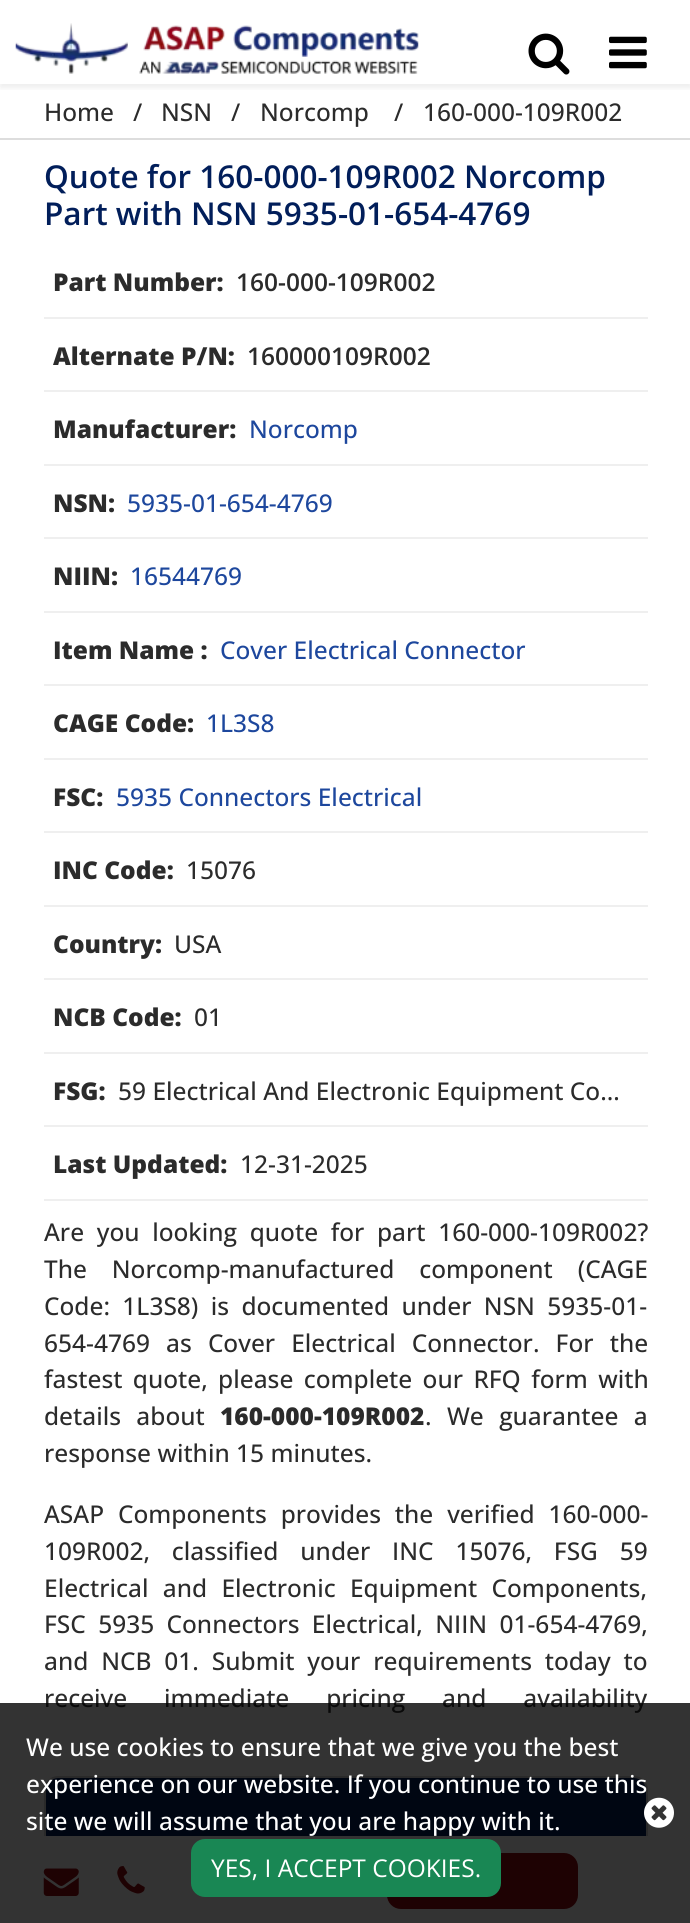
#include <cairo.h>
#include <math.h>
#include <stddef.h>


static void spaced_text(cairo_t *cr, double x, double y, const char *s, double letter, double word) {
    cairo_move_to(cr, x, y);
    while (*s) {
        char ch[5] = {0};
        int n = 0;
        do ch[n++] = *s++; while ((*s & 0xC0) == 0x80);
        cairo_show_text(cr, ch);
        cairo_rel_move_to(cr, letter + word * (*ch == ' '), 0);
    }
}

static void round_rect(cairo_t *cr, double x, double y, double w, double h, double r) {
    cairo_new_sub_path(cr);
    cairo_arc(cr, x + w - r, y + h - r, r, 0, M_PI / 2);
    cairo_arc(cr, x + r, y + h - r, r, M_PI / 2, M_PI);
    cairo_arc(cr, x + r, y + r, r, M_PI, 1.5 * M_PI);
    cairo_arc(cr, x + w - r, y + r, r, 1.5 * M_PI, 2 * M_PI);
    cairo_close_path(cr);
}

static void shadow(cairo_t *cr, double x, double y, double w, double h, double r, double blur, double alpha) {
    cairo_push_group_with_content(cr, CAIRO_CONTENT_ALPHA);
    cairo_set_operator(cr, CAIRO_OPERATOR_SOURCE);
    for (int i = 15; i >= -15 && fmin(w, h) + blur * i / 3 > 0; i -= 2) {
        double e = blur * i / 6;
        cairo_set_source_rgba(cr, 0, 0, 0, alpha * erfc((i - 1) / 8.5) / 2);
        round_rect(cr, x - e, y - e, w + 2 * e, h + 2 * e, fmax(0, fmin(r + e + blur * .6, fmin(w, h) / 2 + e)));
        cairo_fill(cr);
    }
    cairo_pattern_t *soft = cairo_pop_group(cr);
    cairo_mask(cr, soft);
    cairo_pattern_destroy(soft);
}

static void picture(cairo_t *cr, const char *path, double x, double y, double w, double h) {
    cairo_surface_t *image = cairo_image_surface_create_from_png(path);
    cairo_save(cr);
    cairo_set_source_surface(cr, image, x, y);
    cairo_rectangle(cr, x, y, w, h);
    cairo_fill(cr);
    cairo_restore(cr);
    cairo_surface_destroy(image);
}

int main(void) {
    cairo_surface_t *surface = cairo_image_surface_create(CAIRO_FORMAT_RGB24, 690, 1923);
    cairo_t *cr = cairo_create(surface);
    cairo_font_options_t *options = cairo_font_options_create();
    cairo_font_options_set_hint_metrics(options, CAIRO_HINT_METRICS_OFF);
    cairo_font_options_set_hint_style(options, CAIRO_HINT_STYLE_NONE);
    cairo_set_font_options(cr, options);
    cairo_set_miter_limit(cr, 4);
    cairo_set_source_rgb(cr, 1, 1, 1);
    cairo_paint(cr);
    cairo_save(cr);
    cairo_rectangle(cr, 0, 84, 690, 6);
    cairo_clip(cr);
    cairo_set_source_rgb(cr, 0, 0, 0);
    shadow(cr, 0, -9, 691, 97, 0, 3, 0.07);
    cairo_restore(cr);
    picture(cr, "img1.png", 15, 23, 404, 51);
    round_rect(cr, 45, 1777, 602, 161, 13);
    cairo_set_source_rgb(cr, 0.824, 0.824, 0.824);
    cairo_stroke(cr);
    cairo_set_source_rgb(cr, 0.004, 0.118, 0.353);
    cairo_new_path(cr);
    cairo_move_to(cr, 58, 1778);
    cairo_line_to(cr, 634, 1778);
    cairo_curve_to(cr, 640.5, 1778, 646, 1783.5, 646, 1790);
    cairo_line_to(cr, 646, 1894);
    cairo_line_to(cr, 46, 1894);
    cairo_line_to(cr, 46, 1790);
    cairo_curve_to(cr, 46, 1783.5, 51.5, 1778, 58, 1778);
    cairo_close_path(cr);
    cairo_fill(cr);
    cairo_set_source_rgb(cr, 1, 1, 1);
    cairo_rectangle(cr, 44, 1836, 604, 87);
    cairo_fill(cr);
    picture(cr, "img2.png", 43, 1868, 36, 28);
    picture(cr, "img3.png", 117, 1866, 28, 28);
    cairo_set_source_rgb(cr, 0.584, 0.035, 0.055);
    round_rect(cr, 387, 1853, 191, 56, 14);
    cairo_fill(cr);
    picture(cr, "img4.png", 528, 33, 42, 42);
    picture(cr, "img5.png", 609, 36, 38, 33);
    cairo_set_source_rgb(cr, 0.867, 0.867, 0.867);
    cairo_rectangle(cr, 0, 138, 690, 2);
    cairo_fill(cr);
    cairo_select_font_face(cr, "Open Sans Medium", CAIRO_FONT_SLANT_NORMAL, CAIRO_FONT_WEIGHT_NORMAL);
    cairo_set_font_size(cr, 24.5);
    cairo_set_source_rgb(cr, 0.169, 0.169, 0.169);
    cairo_move_to(cr, 44, 121);
    cairo_show_text(cr, "Home");
    cairo_move_to(cr, 133, 121);
    cairo_show_text(cr, "/");
    cairo_move_to(cr, 161, 121);
    cairo_show_text(cr, "NSN");
    cairo_move_to(cr, 231, 121);
    cairo_show_text(cr, "/");
    cairo_move_to(cr, 260, 121);
    cairo_show_text(cr, "Norcomp");
    cairo_move_to(cr, 394, 121);
    cairo_show_text(cr, "/");
    cairo_move_to(cr, 423, 121);
    cairo_show_text(cr, "160-000-109R002");
    cairo_select_font_face(cr, "Open Sans SemiBold", CAIRO_FONT_SLANT_NORMAL, CAIRO_FONT_WEIGHT_NORMAL);
    cairo_set_font_size(cr, 31.5);
    cairo_set_source_rgb(cr, 0.004, 0.118, 0.353);
    cairo_move_to(cr, 44, 188);
    cairo_show_text(cr, "Quote for 160-000-109R002 Norcomp");
    cairo_move_to(cr, 44, 225);
    cairo_show_text(cr, "Part with NSN 5935-01-654-4769");
    cairo_set_source_rgb(cr, 0.937, 0.937, 0.937);
    cairo_rectangle(cr, 44, 317, 604, 2);
    cairo_fill(cr);
    cairo_select_font_face(cr, "Open Sans ExtraBold", CAIRO_FONT_SLANT_NORMAL, CAIRO_FONT_WEIGHT_NORMAL);
    cairo_set_font_size(cr, 24.5);
    cairo_set_source_rgb(cr, 0.169, 0.169, 0.169);
    cairo_move_to(cr, 53, 291);
    cairo_show_text(cr, "Part Number:");
    cairo_select_font_face(cr, "Open Sans SemiBold", CAIRO_FONT_SLANT_NORMAL, CAIRO_FONT_WEIGHT_NORMAL);
    cairo_move_to(cr, 236, 291);
    cairo_show_text(cr, "160-000-109R002");
    cairo_set_source_rgb(cr, 0.937, 0.937, 0.937);
    cairo_rectangle(cr, 44, 390, 604, 2);
    cairo_fill(cr);
    cairo_select_font_face(cr, "Open Sans ExtraBold", CAIRO_FONT_SLANT_NORMAL, CAIRO_FONT_WEIGHT_NORMAL);
    cairo_set_source_rgb(cr, 0.169, 0.169, 0.169);
    cairo_move_to(cr, 53, 365);
    cairo_show_text(cr, "Alternate P/N:");
    cairo_select_font_face(cr, "Open Sans SemiBold", CAIRO_FONT_SLANT_NORMAL, CAIRO_FONT_WEIGHT_NORMAL);
    cairo_move_to(cr, 247, 365);
    cairo_show_text(cr, "160000109R002");
    cairo_set_source_rgb(cr, 0.937, 0.937, 0.937);
    cairo_rectangle(cr, 44, 464, 604, 2);
    cairo_fill(cr);
    cairo_select_font_face(cr, "Open Sans ExtraBold", CAIRO_FONT_SLANT_NORMAL, CAIRO_FONT_WEIGHT_NORMAL);
    cairo_set_source_rgb(cr, 0.169, 0.169, 0.169);
    cairo_move_to(cr, 53, 438);
    cairo_show_text(cr, "Manufacturer:");
    cairo_select_font_face(cr, "Open Sans Medium", CAIRO_FONT_SLANT_NORMAL, CAIRO_FONT_WEIGHT_NORMAL);
    cairo_set_source_rgb(cr, 0.114, 0.278, 0.616);
    cairo_move_to(cr, 249, 438);
    cairo_show_text(cr, "Norcomp");
    cairo_set_source_rgb(cr, 0.937, 0.937, 0.937);
    cairo_rectangle(cr, 44, 537, 604, 2);
    cairo_fill(cr);
    cairo_select_font_face(cr, "Open Sans ExtraBold", CAIRO_FONT_SLANT_NORMAL, CAIRO_FONT_WEIGHT_NORMAL);
    cairo_set_source_rgb(cr, 0.169, 0.169, 0.169);
    cairo_move_to(cr, 53, 512);
    cairo_show_text(cr, "NSN:");
    cairo_select_font_face(cr, "Open Sans Medium", CAIRO_FONT_SLANT_NORMAL, CAIRO_FONT_WEIGHT_NORMAL);
    cairo_set_source_rgb(cr, 0.114, 0.278, 0.616);
    cairo_move_to(cr, 127, 512);
    cairo_show_text(cr, "5935-01-654-4769");
    cairo_set_source_rgb(cr, 0.937, 0.937, 0.937);
    cairo_rectangle(cr, 44, 611, 604, 2);
    cairo_fill(cr);
    cairo_select_font_face(cr, "Open Sans ExtraBold", CAIRO_FONT_SLANT_NORMAL, CAIRO_FONT_WEIGHT_NORMAL);
    cairo_set_source_rgb(cr, 0.169, 0.169, 0.169);
    cairo_move_to(cr, 53, 585);
    cairo_show_text(cr, "NIIN:");
    cairo_select_font_face(cr, "Open Sans Medium", CAIRO_FONT_SLANT_NORMAL, CAIRO_FONT_WEIGHT_NORMAL);
    cairo_set_source_rgb(cr, 0.114, 0.278, 0.616);
    cairo_move_to(cr, 130, 585);
    cairo_show_text(cr, "16544769");
    cairo_set_source_rgb(cr, 0.937, 0.937, 0.937);
    cairo_rectangle(cr, 44, 684, 604, 2);
    cairo_fill(cr);
    cairo_select_font_face(cr, "Open Sans ExtraBold", CAIRO_FONT_SLANT_NORMAL, CAIRO_FONT_WEIGHT_NORMAL);
    cairo_set_source_rgb(cr, 0.169, 0.169, 0.169);
    cairo_move_to(cr, 53, 659);
    cairo_show_text(cr, "Item Name :");
    cairo_select_font_face(cr, "Open Sans Medium", CAIRO_FONT_SLANT_NORMAL, CAIRO_FONT_WEIGHT_NORMAL);
    cairo_set_source_rgb(cr, 0.114, 0.278, 0.616);
    cairo_move_to(cr, 220, 659);
    cairo_show_text(cr, "Cover Electrical Connector");
    cairo_set_source_rgb(cr, 0.937, 0.937, 0.937);
    cairo_rectangle(cr, 44, 758, 604, 2);
    cairo_fill(cr);
    cairo_select_font_face(cr, "Open Sans ExtraBold", CAIRO_FONT_SLANT_NORMAL, CAIRO_FONT_WEIGHT_NORMAL);
    cairo_set_source_rgb(cr, 0.169, 0.169, 0.169);
    cairo_move_to(cr, 53, 732);
    cairo_show_text(cr, "CAGE Code:");
    cairo_select_font_face(cr, "Open Sans Medium", CAIRO_FONT_SLANT_NORMAL, CAIRO_FONT_WEIGHT_NORMAL);
    cairo_set_source_rgb(cr, 0.114, 0.278, 0.616);
    cairo_move_to(cr, 206, 732);
    cairo_show_text(cr, "1L3S8");
    cairo_set_source_rgb(cr, 0.937, 0.937, 0.937);
    cairo_rectangle(cr, 44, 831, 604, 2);
    cairo_fill(cr);
    cairo_select_font_face(cr, "Open Sans ExtraBold", CAIRO_FONT_SLANT_NORMAL, CAIRO_FONT_WEIGHT_NORMAL);
    cairo_set_source_rgb(cr, 0.169, 0.169, 0.169);
    cairo_move_to(cr, 53, 806);
    cairo_show_text(cr, "FSC:");
    cairo_select_font_face(cr, "Open Sans Medium", CAIRO_FONT_SLANT_NORMAL, CAIRO_FONT_WEIGHT_NORMAL);
    cairo_set_source_rgb(cr, 0.114, 0.278, 0.616);
    cairo_move_to(cr, 116, 806);
    cairo_show_text(cr, "5935 Connectors Electrical");
    cairo_set_source_rgb(cr, 0.937, 0.937, 0.937);
    cairo_rectangle(cr, 44, 905, 604, 2);
    cairo_fill(cr);
    cairo_select_font_face(cr, "Open Sans ExtraBold", CAIRO_FONT_SLANT_NORMAL, CAIRO_FONT_WEIGHT_NORMAL);
    cairo_set_source_rgb(cr, 0.169, 0.169, 0.169);
    cairo_move_to(cr, 53, 879);
    cairo_show_text(cr, "INC Code:");
    cairo_select_font_face(cr, "Open Sans Medium", CAIRO_FONT_SLANT_NORMAL, CAIRO_FONT_WEIGHT_NORMAL);
    cairo_move_to(cr, 186, 879);
    cairo_show_text(cr, "15076");
    cairo_set_source_rgb(cr, 0.937, 0.937, 0.937);
    cairo_rectangle(cr, 44, 978, 604, 2);
    cairo_fill(cr);
    cairo_select_font_face(cr, "Open Sans ExtraBold", CAIRO_FONT_SLANT_NORMAL, CAIRO_FONT_WEIGHT_NORMAL);
    cairo_set_source_rgb(cr, 0.169, 0.169, 0.169);
    cairo_move_to(cr, 53, 953);
    cairo_show_text(cr, "Country:");
    cairo_select_font_face(cr, "Open Sans Medium", CAIRO_FONT_SLANT_NORMAL, CAIRO_FONT_WEIGHT_NORMAL);
    cairo_move_to(cr, 174, 953);
    cairo_show_text(cr, "USA");
    cairo_set_source_rgb(cr, 0.937, 0.937, 0.937);
    cairo_rectangle(cr, 44, 1052, 604, 2);
    cairo_fill(cr);
    cairo_select_font_face(cr, "Open Sans ExtraBold", CAIRO_FONT_SLANT_NORMAL, CAIRO_FONT_WEIGHT_NORMAL);
    cairo_set_source_rgb(cr, 0.169, 0.169, 0.169);
    cairo_move_to(cr, 53, 1026);
    cairo_show_text(cr, "NCB Code:");
    cairo_select_font_face(cr, "Open Sans Medium", CAIRO_FONT_SLANT_NORMAL, CAIRO_FONT_WEIGHT_NORMAL);
    cairo_move_to(cr, 194, 1026);
    cairo_show_text(cr, "01");
    cairo_set_source_rgb(cr, 0.937, 0.937, 0.937);
    cairo_rectangle(cr, 44, 1125, 604, 2);
    cairo_fill(cr);
    cairo_select_font_face(cr, "Open Sans ExtraBold", CAIRO_FONT_SLANT_NORMAL, CAIRO_FONT_WEIGHT_NORMAL);
    cairo_set_source_rgb(cr, 0.169, 0.169, 0.169);
    cairo_move_to(cr, 53, 1100);
    cairo_show_text(cr, "FSG:");
    cairo_select_font_face(cr, "Open Sans Medium", CAIRO_FONT_SLANT_NORMAL, CAIRO_FONT_WEIGHT_NORMAL);
    cairo_move_to(cr, 118, 1100);
    cairo_show_text(cr, "59 Electrical And Electronic Equipment Co…");
    cairo_set_source_rgb(cr, 0.937, 0.937, 0.937);
    cairo_rectangle(cr, 44, 1199, 604, 2);
    cairo_fill(cr);
    cairo_select_font_face(cr, "Open Sans ExtraBold", CAIRO_FONT_SLANT_NORMAL, CAIRO_FONT_WEIGHT_NORMAL);
    cairo_set_source_rgb(cr, 0.169, 0.169, 0.169);
    cairo_move_to(cr, 53, 1173);
    cairo_show_text(cr, "Last Updated:");
    cairo_select_font_face(cr, "Open Sans Medium", CAIRO_FONT_SLANT_NORMAL, CAIRO_FONT_WEIGHT_NORMAL);
    cairo_move_to(cr, 240, 1173);
    cairo_show_text(cr, "12-31-2025");
    spaced_text(cr, 44, 1241, "Are you looking quote for part 160-000-109R002?", 0, 6.25);
    spaced_text(cr, 44, 1278, "The Norcomp-manufactured component (CAGE", 0, 18.5);
    spaced_text(cr, 44, 1315, "Code: 1L3S8) is documented under NSN 5935-01-", 0, 6);
    spaced_text(cr, 44, 1352, "654-4769 as Cover Electrical Connector. For the", 0, 9.75);
    spaced_text(cr, 44, 1388, "fastest quote, please complete our RFQ form with", 0, 4);
    spaced_text(cr, 44, 1425, "details about", 0, 9);
    cairo_select_font_face(cr, "Open Sans ExtraBold", CAIRO_FONT_SLANT_NORMAL, CAIRO_FONT_WEIGHT_NORMAL);
    cairo_move_to(cr, 220, 1425);
    cairo_show_text(cr, "160-000-109R002");
    cairo_select_font_face(cr, "Open Sans Medium", CAIRO_FONT_SLANT_NORMAL, CAIRO_FONT_WEIGHT_NORMAL);
    spaced_text(cr, 425, 1425, ". We guarantee a", 0, 9);
    cairo_move_to(cr, 44, 1462);
    cairo_show_text(cr, "response within 15 minutes.");
    spaced_text(cr, 44, 1523, "ASAP Components provides the verified 160-000-", 0, 7.5);
    spaced_text(cr, 44, 1560, "109R002, classified under INC 15076, FSG 59", 0, 15.5);
    spaced_text(cr, 44, 1597, "Electrical and Electronic Equipment Components,", 0, 8);
    spaced_text(cr, 44, 1633, "FSC 5935 Connectors Electrical, NIIN 01-654-4769,", 0, 6);
    spaced_text(cr, 44, 1670, "and NCB 01. Submit your requirements today to", 0, 6.5);
    spaced_text(cr, 44, 1707, "receive immediate pricing and availability", 0, 30.5);
    cairo_set_source_rgba(cr, 0, 0, 0, 0.8);
    cairo_rectangle(cr, 0, 1703, 690, 220);
    cairo_fill(cr);
    cairo_set_source_rgb(cr, 1, 1, 1);
    cairo_move_to(cr, 26, 1756);
    cairo_show_text(cr, "We use cookies to ensure that we give you the best");
    cairo_move_to(cr, 26, 1793);
    cairo_show_text(cr, "experience on our website. If you continue to use this");
    cairo_move_to(cr, 26, 1830);
    cairo_show_text(cr, "site we will assume that you are happy with it.");
    picture(cr, "img6.png", 644, 1797, 30, 31);
    cairo_set_source_rgb(cr, 0.098, 0.529, 0.329);
    round_rect(cr, 192, 1840, 308, 56, 13);
    cairo_fill_preserve(cr);
    cairo_stroke(cr);
    cairo_select_font_face(cr, "Open Sans", CAIRO_FONT_SLANT_NORMAL, CAIRO_FONT_WEIGHT_NORMAL);
    cairo_set_source_rgb(cr, 1, 1, 1);
    cairo_move_to(cr, 211, 1877);
    cairo_show_text(cr, "YES, I ACCEPT COOKIES.");
    cairo_surface_write_to_png(surface, "page.png");
    cairo_font_options_destroy(options);
    cairo_destroy(cr);
    cairo_surface_destroy(surface);
    return 0;
}
